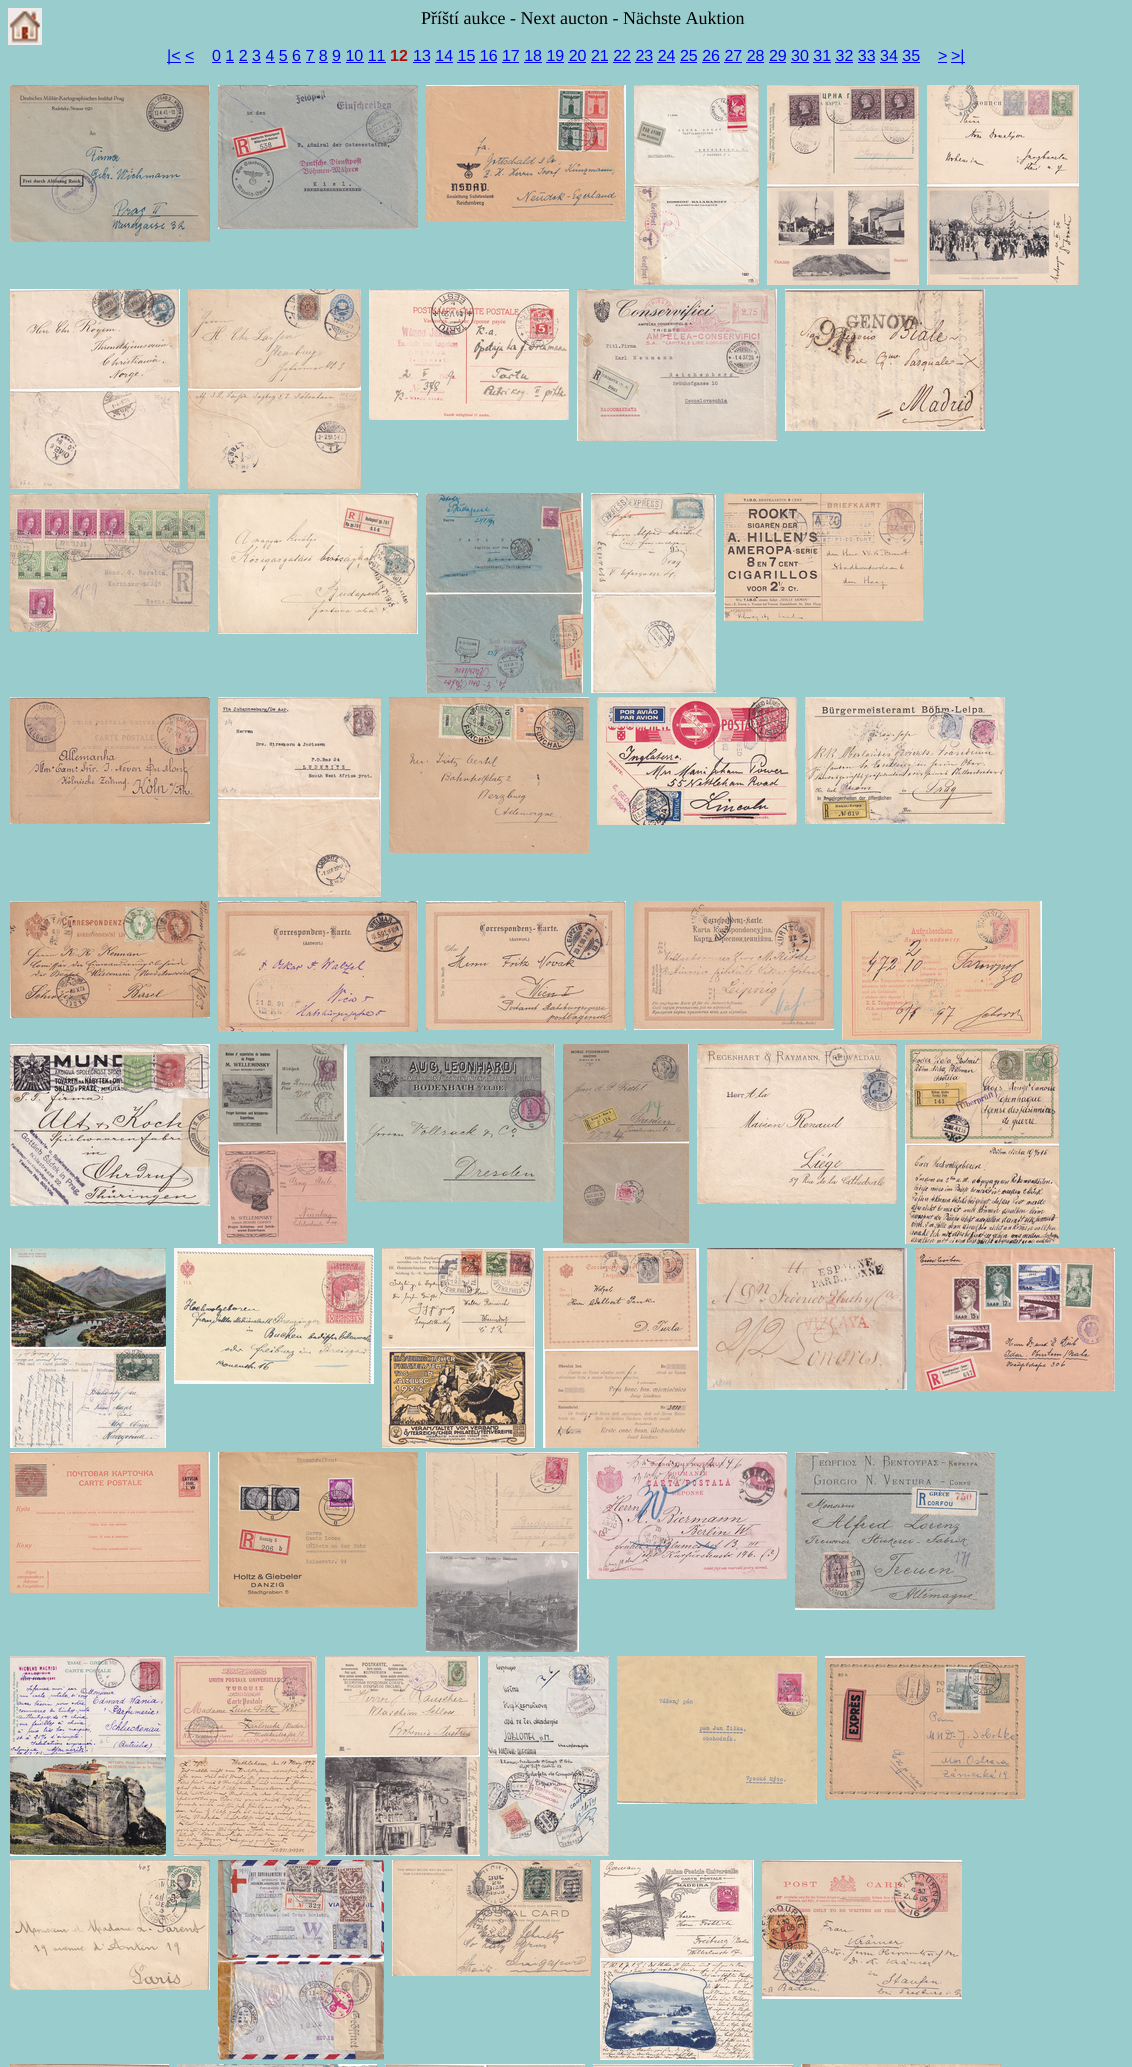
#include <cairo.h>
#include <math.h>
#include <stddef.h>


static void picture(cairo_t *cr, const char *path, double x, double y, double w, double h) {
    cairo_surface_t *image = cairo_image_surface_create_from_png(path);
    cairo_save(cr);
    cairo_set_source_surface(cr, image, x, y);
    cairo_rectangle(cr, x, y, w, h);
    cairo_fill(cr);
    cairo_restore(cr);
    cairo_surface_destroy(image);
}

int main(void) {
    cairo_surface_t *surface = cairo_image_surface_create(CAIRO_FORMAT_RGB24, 1132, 2067);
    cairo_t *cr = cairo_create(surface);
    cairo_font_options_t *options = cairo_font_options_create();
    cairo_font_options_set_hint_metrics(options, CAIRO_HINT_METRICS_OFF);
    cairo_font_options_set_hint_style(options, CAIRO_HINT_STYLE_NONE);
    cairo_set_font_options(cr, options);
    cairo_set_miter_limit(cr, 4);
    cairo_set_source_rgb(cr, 0.6, 0.8, 0.8);
    cairo_paint(cr);
    picture(cr, "img1.png", 8, 8, 34, 37);
    cairo_select_font_face(cr, "Liberation Serif", CAIRO_FONT_SLANT_NORMAL, CAIRO_FONT_WEIGHT_NORMAL);
    cairo_set_font_size(cr, 18);
    cairo_set_source_rgb(cr, 0, 0, 0);
    cairo_move_to(cr, 421, 24);
    cairo_show_text(cr, "Příští aukce - Next aucton - Nächste Auktion");
    cairo_set_source_rgb(cr, 0, 0, 1);
    cairo_rectangle(cr, 167, 62, 14, 1);
    cairo_fill(cr);
    cairo_select_font_face(cr, "Liberation Sans", CAIRO_FONT_SLANT_NORMAL, CAIRO_FONT_WEIGHT_NORMAL);
    cairo_set_font_size(cr, 16);
    cairo_move_to(cr, 167, 61);
    cairo_show_text(cr, "|< <");
    cairo_move_to(cr, 212, 61);
    cairo_show_text(cr, "0 1 2 3 4 5 6 7 8 9 10 11");
    cairo_rectangle(cr, 212, 62, 9, 1);
    cairo_fill(cr);
    cairo_select_font_face(cr, "Liberation Sans", CAIRO_FONT_SLANT_NORMAL, CAIRO_FONT_WEIGHT_BOLD);
    cairo_set_source_rgb(cr, 0.69, 0.063, 0.063);
    cairo_move_to(cr, 390, 61);
    cairo_show_text(cr, "12");
    cairo_select_font_face(cr, "Liberation Sans", CAIRO_FONT_SLANT_NORMAL, CAIRO_FONT_WEIGHT_NORMAL);
    cairo_set_source_rgb(cr, 0, 0, 1);
    cairo_move_to(cr, 413, 61);
    cairo_show_text(cr, "13 14 15 16 17 18 19 20 21 22 23 24 25 26 27 28 29 30 31 32 33 34 35");
    cairo_rectangle(cr, 413, 62, 17, 1);
    cairo_fill(cr);
    cairo_move_to(cr, 938, 61);
    cairo_show_text(cr, ">");
    cairo_rectangle(cr, 938, 62, 9, 1);
    cairo_fill(cr);
    cairo_rectangle(cr, 951, 62, 14, 1);
    cairo_fill(cr);
    cairo_move_to(cr, 951, 61);
    cairo_show_text(cr, ">|");
    cairo_rectangle(cr, 185, 62, 9, 1);
    cairo_fill(cr);
    cairo_rectangle(cr, 226, 62, 8, 1);
    cairo_fill(cr);
    cairo_rectangle(cr, 239, 62, 9, 1);
    cairo_fill(cr);
    cairo_rectangle(cr, 252, 62, 9, 1);
    cairo_fill(cr);
    cairo_rectangle(cr, 266, 62, 9, 1);
    cairo_fill(cr);
    cairo_rectangle(cr, 279, 62, 9, 1);
    cairo_fill(cr);
    cairo_rectangle(cr, 292, 62, 9, 1);
    cairo_fill(cr);
    cairo_rectangle(cr, 306, 62, 9, 1);
    cairo_fill(cr);
    cairo_rectangle(cr, 319, 62, 9, 1);
    cairo_fill(cr);
    cairo_rectangle(cr, 332, 62, 9, 1);
    cairo_fill(cr);
    cairo_rectangle(cr, 346, 62, 18, 1);
    cairo_fill(cr);
    cairo_rectangle(cr, 368, 62, 18, 1);
    cairo_fill(cr);
    cairo_rectangle(cr, 435, 62, 18, 1);
    cairo_fill(cr);
    cairo_rectangle(cr, 457, 62, 18, 1);
    cairo_fill(cr);
    cairo_rectangle(cr, 479, 62, 18, 1);
    cairo_fill(cr);
    cairo_rectangle(cr, 502, 62, 17, 1);
    cairo_fill(cr);
    cairo_rectangle(cr, 524, 62, 18, 1);
    cairo_fill(cr);
    cairo_rectangle(cr, 546, 62, 18, 1);
    cairo_fill(cr);
    cairo_rectangle(cr, 568, 62, 18, 1);
    cairo_fill(cr);
    cairo_rectangle(cr, 591, 62, 17, 1);
    cairo_fill(cr);
    cairo_rectangle(cr, 613, 62, 18, 1);
    cairo_fill(cr);
    cairo_rectangle(cr, 635, 62, 18, 1);
    cairo_fill(cr);
    cairo_rectangle(cr, 657, 62, 18, 1);
    cairo_fill(cr);
    cairo_rectangle(cr, 680, 62, 17, 1);
    cairo_fill(cr);
    cairo_rectangle(cr, 702, 62, 18, 1);
    cairo_fill(cr);
    cairo_rectangle(cr, 724, 62, 18, 1);
    cairo_fill(cr);
    cairo_rectangle(cr, 746, 62, 18, 1);
    cairo_fill(cr);
    cairo_rectangle(cr, 769, 62, 17, 1);
    cairo_fill(cr);
    cairo_rectangle(cr, 791, 62, 18, 1);
    cairo_fill(cr);
    cairo_rectangle(cr, 813, 62, 18, 1);
    cairo_fill(cr);
    cairo_rectangle(cr, 835, 62, 18, 1);
    cairo_fill(cr);
    cairo_rectangle(cr, 858, 62, 17, 1);
    cairo_fill(cr);
    cairo_rectangle(cr, 880, 62, 18, 1);
    cairo_fill(cr);
    cairo_rectangle(cr, 902, 62, 18, 1);
    cairo_fill(cr);
    picture(cr, "img2.png", 10, 85, 200, 157);
    picture(cr, "img3.png", 218, 85, 200, 144);
    picture(cr, "img4.png", 426, 85, 200, 136);
    picture(cr, "img5.png", 634, 85, 125, 200);
    picture(cr, "img6.png", 767, 85, 152, 200);
    picture(cr, "img7.png", 927, 85, 152, 200);
    picture(cr, "img8.png", 10, 289, 170, 200);
    picture(cr, "img9.png", 188, 289, 173, 200);
    picture(cr, "img10.png", 369, 289, 200, 131);
    picture(cr, "img11.png", 577, 289, 200, 152);
    picture(cr, "img12.png", 785, 289, 200, 142);
    picture(cr, "img13.png", 10, 493, 200, 139);
    picture(cr, "img14.png", 218, 493, 200, 141);
    picture(cr, "img15.png", 426, 493, 157, 200);
    picture(cr, "img16.png", 591, 493, 125, 200);
    picture(cr, "img17.png", 724, 493, 200, 128);
    picture(cr, "img18.png", 10, 697, 200, 127);
    picture(cr, "img19.png", 218, 697, 163, 200);
    picture(cr, "img20.png", 389, 697, 200, 156);
    picture(cr, "img21.png", 597, 697, 200, 128);
    picture(cr, "img22.png", 805, 697, 200, 127);
    picture(cr, "img23.png", 10, 901, 200, 117);
    picture(cr, "img24.png", 218, 901, 200, 131);
    picture(cr, "img25.png", 426, 901, 200, 129);
    picture(cr, "img26.png", 634, 901, 200, 129);
    picture(cr, "img27.png", 842, 901, 200, 139);
    picture(cr, "img28.png", 10, 1044, 200, 162);
    picture(cr, "img29.png", 218, 1044, 129, 200);
    picture(cr, "img30.png", 355, 1044, 200, 158);
    picture(cr, "img31.png", 563, 1044, 126, 200);
    picture(cr, "img32.png", 697, 1044, 200, 160);
    picture(cr, "img33.png", 905, 1044, 154, 200);
    picture(cr, "img34.png", 10, 1248, 156, 200);
    picture(cr, "img35.png", 174, 1248, 200, 136);
    picture(cr, "img36.png", 382, 1248, 153, 200);
    picture(cr, "img37.png", 543, 1248, 156, 200);
    picture(cr, "img38.png", 707, 1248, 200, 142);
    picture(cr, "img39.png", 915, 1248, 200, 143);
    picture(cr, "img40.png", 10, 1452, 200, 141);
    picture(cr, "img41.png", 218, 1452, 200, 155);
    picture(cr, "img42.png", 426, 1452, 153, 200);
    picture(cr, "img43.png", 587, 1452, 200, 127);
    picture(cr, "img44.png", 795, 1452, 200, 158);
    picture(cr, "img45.png", 10, 1656, 156, 200);
    picture(cr, "img46.png", 174, 1656, 143, 200);
    picture(cr, "img47.png", 325, 1656, 155, 200);
    picture(cr, "img48.png", 488, 1656, 121, 200);
    picture(cr, "img49.png", 617, 1656, 200, 148);
    picture(cr, "img50.png", 825, 1656, 200, 144);
    picture(cr, "img51.png", 10, 1860, 200, 130);
    picture(cr, "img52.png", 218, 1860, 166, 200);
    picture(cr, "img53.png", 392, 1860, 200, 116);
    picture(cr, "img54.png", 600, 1860, 154, 200);
    picture(cr, "img55.png", 762, 1860, 200, 139);
    picture(cr, "img56.png", 10, 2064, 159, 3);
    picture(cr, "img57.png", 177, 2064, 200, 3);
    picture(cr, "img58.png", 385, 2064, 200, 3);
    picture(cr, "img59.png", 593, 2064, 200, 3);
    picture(cr, "img60.png", 801, 2064, 200, 3);
    cairo_surface_write_to_png(surface, "page.png");
    cairo_font_options_destroy(options);
    cairo_destroy(cr);
    cairo_surface_destroy(surface);
    return 0;
}
